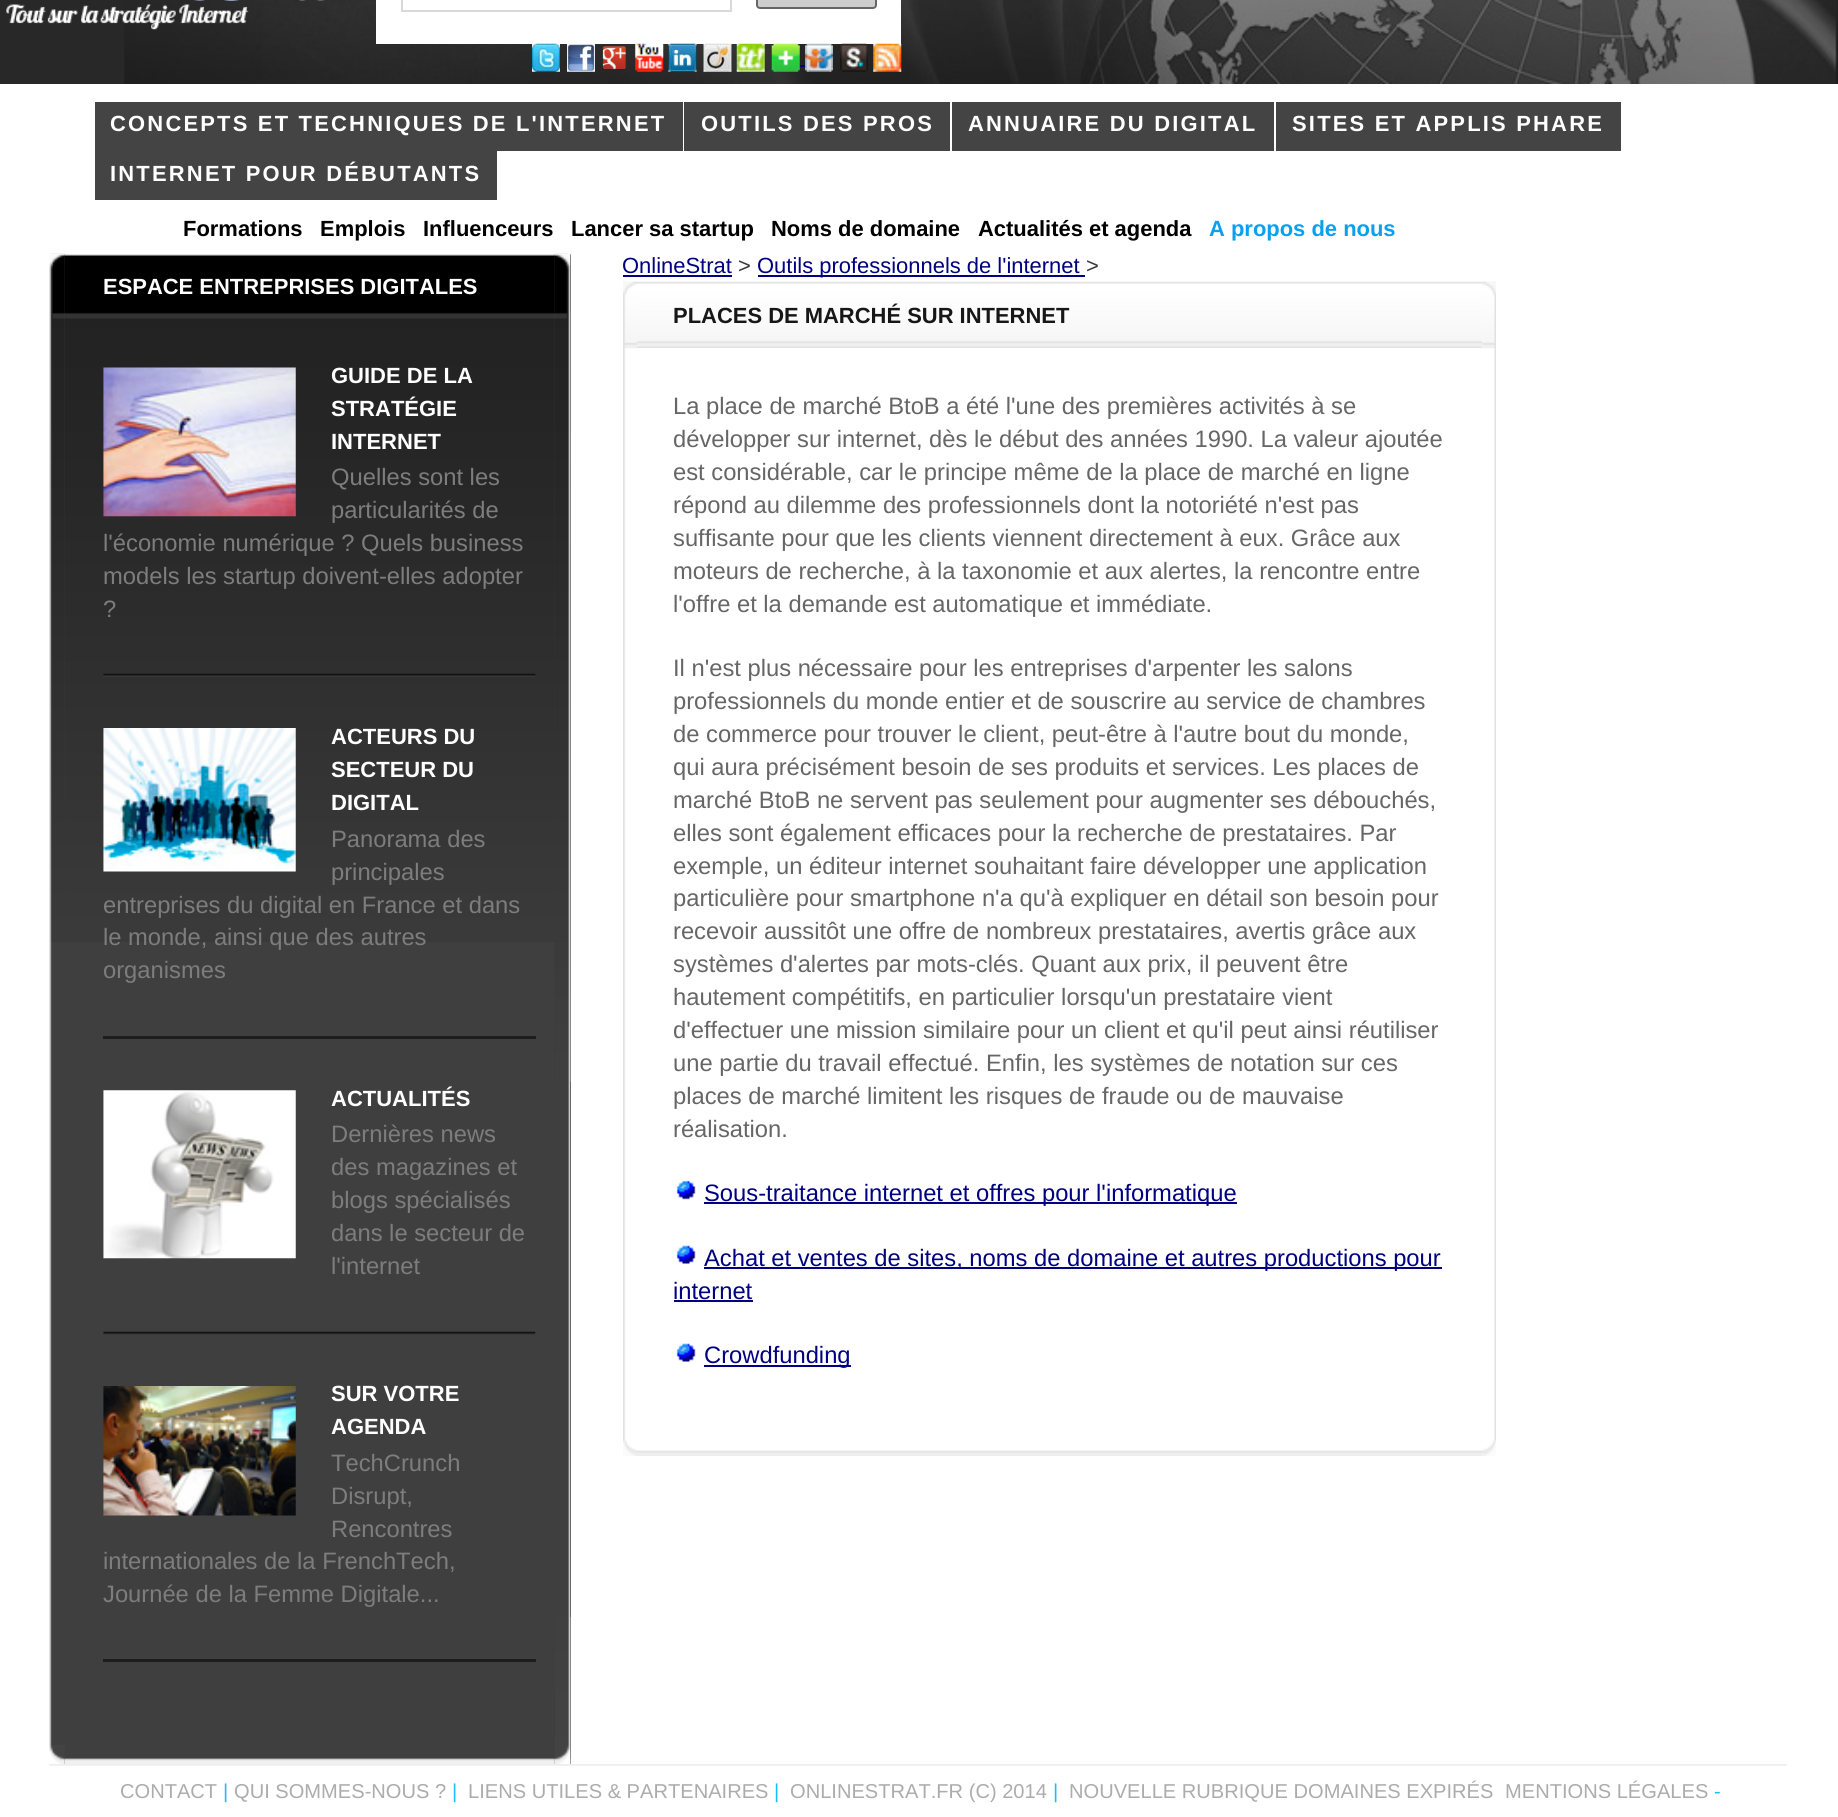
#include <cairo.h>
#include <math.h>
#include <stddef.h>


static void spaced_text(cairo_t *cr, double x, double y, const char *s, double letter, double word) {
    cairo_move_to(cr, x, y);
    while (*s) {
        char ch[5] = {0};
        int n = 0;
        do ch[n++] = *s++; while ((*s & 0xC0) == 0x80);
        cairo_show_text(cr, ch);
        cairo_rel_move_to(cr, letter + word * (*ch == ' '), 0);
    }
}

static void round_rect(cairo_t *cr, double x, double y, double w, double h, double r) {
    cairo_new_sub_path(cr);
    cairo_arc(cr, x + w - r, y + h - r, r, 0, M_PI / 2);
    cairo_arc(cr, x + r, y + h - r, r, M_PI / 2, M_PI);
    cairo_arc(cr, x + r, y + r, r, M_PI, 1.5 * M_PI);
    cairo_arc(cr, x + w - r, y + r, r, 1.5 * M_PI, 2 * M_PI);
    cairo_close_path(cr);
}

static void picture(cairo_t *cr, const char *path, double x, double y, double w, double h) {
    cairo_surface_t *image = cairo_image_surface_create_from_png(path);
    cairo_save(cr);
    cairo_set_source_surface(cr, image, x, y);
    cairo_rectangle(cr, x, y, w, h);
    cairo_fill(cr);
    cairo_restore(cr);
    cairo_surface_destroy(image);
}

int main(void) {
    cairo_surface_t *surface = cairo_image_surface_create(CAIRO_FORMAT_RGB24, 1838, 1817);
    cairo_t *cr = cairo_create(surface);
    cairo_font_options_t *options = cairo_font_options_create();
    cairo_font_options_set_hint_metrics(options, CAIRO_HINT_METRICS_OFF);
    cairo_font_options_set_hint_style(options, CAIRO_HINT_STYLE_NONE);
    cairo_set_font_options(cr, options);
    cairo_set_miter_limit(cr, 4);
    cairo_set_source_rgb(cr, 1, 1, 1);
    cairo_paint(cr);
    cairo_set_source_rgb(cr, 0.157, 0.157, 0.157);
    cairo_rectangle(cr, 0, 0, 125, 84);
    cairo_fill(cr);
    picture(cr, "img1.png", 124, 0, 1714, 84);
    picture(cr, "img2.png", 6, 0, 319, 30);
    cairo_set_source_rgb(cr, 1, 1, 1);
    cairo_rectangle(cr, 376, 0, 525, 44);
    cairo_fill(cr);
    cairo_rectangle(cr, 402, -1, 329, 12);
    cairo_set_source_rgb(cr, 0.851, 0.851, 0.851);
    cairo_stroke(cr);
    cairo_set_source_rgb(cr, 0.808, 0.808, 0.808);
    round_rect(cr, 757, -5, 119, 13, 3);
    cairo_fill_preserve(cr);
    cairo_set_source_rgb(cr, 0.4, 0.4, 0.4);
    cairo_stroke(cr);
    picture(cr, "img3.png", 532, 43, 28, 29);
    picture(cr, "img4.png", 567, 43, 28, 29);
    picture(cr, "img5.png", 602, 46, 24, 24);
    picture(cr, "img6.png", 635, 43, 29, 29);
    picture(cr, "img7.png", 668, 43, 29, 29);
    picture(cr, "img8.png", 703, 43, 29, 29);
    picture(cr, "img9.png", 736, 43, 29, 29);
    picture(cr, "img10.png", 771, 43, 29, 29);
    cairo_set_source_rgb(cr, 0, 0, 0.502);
    cairo_rectangle(cr, 800, 65, 5, 2);
    cairo_fill(cr);
    picture(cr, "img11.png", 805, 43, 28, 29);
    picture(cr, "img12.png", 840, 43, 28, 29);
    picture(cr, "img13.png", 873, 43, 29, 29);
    cairo_set_source_rgb(cr, 0.267, 0.267, 0.267);
    cairo_rectangle(cr, 95, 102, 588, 49);
    cairo_fill(cr);
    cairo_select_font_face(cr, "Liberation Sans", CAIRO_FONT_SLANT_NORMAL, CAIRO_FONT_WEIGHT_BOLD);
    cairo_set_font_size(cr, 21.95);
    cairo_set_source_rgb(cr, 1, 1, 1);
    spaced_text(cr, 110, 131, "CONCEPTS ET TECHNIQUES DE L'INTERNET", 2.2, 0);
    cairo_set_source_rgb(cr, 0.267, 0.267, 0.267);
    cairo_rectangle(cr, 684, 102, 266, 49);
    cairo_fill(cr);
    cairo_set_source_rgb(cr, 1, 1, 1);
    spaced_text(cr, 701, 131, "OUTILS DES PROS", 2.2, 0);
    cairo_set_source_rgb(cr, 0.267, 0.267, 0.267);
    cairo_rectangle(cr, 952, 102, 322, 49);
    cairo_fill(cr);
    cairo_set_source_rgb(cr, 1, 1, 1);
    spaced_text(cr, 968, 131, "ANNUAIRE DU DIGITAL", 2.2, 0);
    cairo_set_source_rgb(cr, 0.267, 0.267, 0.267);
    cairo_rectangle(cr, 1276, 102, 345, 49);
    cairo_fill(cr);
    cairo_set_source_rgb(cr, 1, 1, 1);
    spaced_text(cr, 1292, 131, "SITES ET APPLIS PHARE", 2.2, 0);
    cairo_set_source_rgb(cr, 0.267, 0.267, 0.267);
    cairo_rectangle(cr, 95, 151, 402, 49);
    cairo_fill(cr);
    cairo_set_source_rgb(cr, 1, 1, 1);
    spaced_text(cr, 110, 181, "INTERNET POUR DÉBUTANTS", 2.2, 0);
    cairo_set_source_rgb(cr, 0, 0, 0);
    cairo_move_to(cr, 183, 236);
    cairo_show_text(cr, "Formations");
    cairo_move_to(cr, 320, 236);
    cairo_show_text(cr, "Emplois");
    cairo_move_to(cr, 423, 236);
    cairo_show_text(cr, "Influenceurs");
    cairo_move_to(cr, 571, 236);
    cairo_show_text(cr, "Lancer sa startup");
    cairo_move_to(cr, 771, 236);
    cairo_show_text(cr, "Noms de domaine");
    cairo_move_to(cr, 978, 236);
    cairo_show_text(cr, "Actualités et agenda");
    cairo_set_source_rgb(cr, 0.043, 0.627, 0.937);
    cairo_move_to(cr, 1209, 236);
    cairo_show_text(cr, "A propos de nous");
    cairo_set_source_rgb(cr, 0.247, 0.247, 0.247);
    cairo_rectangle(cr, 64, 254, 507, 1510);
    cairo_fill(cr);
    picture(cr, "img14.png", 64, 254, 507, 688);
    picture(cr, "img15.png", 64, 1758, 507, 6);
    picture(cr, "img16.png", 49, 253, 16, 1511);
    picture(cr, "img17.png", 554, 253, 17, 1511);
    picture(cr, "img18.png", 49, 254, 16, 688);
    picture(cr, "img19.png", 554, 254, 17, 828);
    picture(cr, "img20.png", 49, 1745, 16, 19);
    picture(cr, "img21.png", 554, 1617, 17, 147);
    cairo_set_source_rgb(cr, 1, 1, 1);
    cairo_move_to(cr, 103, 294);
    cairo_show_text(cr, "ESPACE ENTREPRISES DIGITALES");
    picture(cr, "img22.png", 103, 673, 433, 4);
    picture(cr, "img23.png", 103, 367, 193, 150);
    cairo_set_font_size(cr, 22);
    cairo_move_to(cr, 331, 383);
    cairo_show_text(cr, "GUIDE DE LA");
    cairo_move_to(cr, 331, 416);
    cairo_show_text(cr, "STRATÉGIE");
    cairo_move_to(cr, 331, 449);
    cairo_show_text(cr, "INTERNET");
    cairo_select_font_face(cr, "Liberation Sans", CAIRO_FONT_SLANT_NORMAL, CAIRO_FONT_WEIGHT_NORMAL);
    cairo_set_font_size(cr, 23.75);
    cairo_set_source_rgb(cr, 0.49, 0.49, 0.49);
    cairo_move_to(cr, 331, 485);
    cairo_show_text(cr, "Quelles sont les");
    cairo_move_to(cr, 331, 518);
    cairo_show_text(cr, "particularités de");
    cairo_move_to(cr, 103, 551);
    cairo_show_text(cr, "l'économie numérique ? Quels business");
    cairo_move_to(cr, 103, 584);
    cairo_show_text(cr, "models les startup doivent-elles adopter");
    cairo_move_to(cr, 103, 617);
    cairo_show_text(cr, "?");
    cairo_set_source_rgb(cr, 0.114, 0.114, 0.114);
    cairo_rectangle(cr, 103, 1036, 433, 3);
    cairo_fill(cr);
    picture(cr, "img24.png", 103, 728, 193, 144);
    cairo_select_font_face(cr, "Liberation Sans", CAIRO_FONT_SLANT_NORMAL, CAIRO_FONT_WEIGHT_BOLD);
    cairo_set_font_size(cr, 22);
    cairo_set_source_rgb(cr, 1, 1, 1);
    cairo_move_to(cr, 331, 744);
    cairo_show_text(cr, "ACTEURS DU");
    cairo_move_to(cr, 331, 777);
    cairo_show_text(cr, "SECTEUR DU");
    cairo_move_to(cr, 331, 810);
    cairo_show_text(cr, "DIGITAL");
    cairo_select_font_face(cr, "Liberation Sans", CAIRO_FONT_SLANT_NORMAL, CAIRO_FONT_WEIGHT_NORMAL);
    cairo_set_font_size(cr, 23.75);
    cairo_set_source_rgb(cr, 0.49, 0.49, 0.49);
    cairo_move_to(cr, 331, 847);
    cairo_show_text(cr, "Panorama des");
    cairo_move_to(cr, 331, 880);
    cairo_show_text(cr, "principales");
    cairo_move_to(cr, 103, 913);
    cairo_show_text(cr, "entreprises du digital en France et dans");
    cairo_move_to(cr, 103, 945);
    cairo_show_text(cr, "le monde, ainsi que des autres");
    cairo_move_to(cr, 103, 978);
    cairo_show_text(cr, "organismes");
    picture(cr, "img25.png", 103, 1331, 433, 4);
    picture(cr, "img26.png", 103, 1090, 193, 169);
    cairo_select_font_face(cr, "Liberation Sans", CAIRO_FONT_SLANT_NORMAL, CAIRO_FONT_WEIGHT_BOLD);
    cairo_set_font_size(cr, 22);
    cairo_set_source_rgb(cr, 1, 1, 1);
    cairo_move_to(cr, 331, 1106);
    cairo_show_text(cr, "ACTUALITÉS");
    cairo_select_font_face(cr, "Liberation Sans", CAIRO_FONT_SLANT_NORMAL, CAIRO_FONT_WEIGHT_NORMAL);
    cairo_set_font_size(cr, 23.75);
    cairo_set_source_rgb(cr, 0.49, 0.49, 0.49);
    cairo_move_to(cr, 331, 1142);
    cairo_show_text(cr, "Dernières news");
    cairo_move_to(cr, 331, 1175);
    cairo_show_text(cr, "des magazines et");
    cairo_move_to(cr, 331, 1208);
    cairo_show_text(cr, "blogs spécialisés");
    cairo_move_to(cr, 331, 1241);
    cairo_show_text(cr, "dans le secteur de");
    cairo_move_to(cr, 331, 1274);
    cairo_show_text(cr, "l'internet");
    cairo_set_source_rgb(cr, 0.114, 0.114, 0.114);
    cairo_rectangle(cr, 103, 1659, 433, 3);
    cairo_fill(cr);
    picture(cr, "img27.png", 103, 1386, 193, 130);
    cairo_select_font_face(cr, "Liberation Sans", CAIRO_FONT_SLANT_NORMAL, CAIRO_FONT_WEIGHT_BOLD);
    cairo_set_font_size(cr, 22);
    cairo_set_source_rgb(cr, 1, 1, 1);
    cairo_move_to(cr, 331, 1401);
    cairo_show_text(cr, "SUR VOTRE");
    cairo_move_to(cr, 331, 1434);
    cairo_show_text(cr, "AGENDA");
    cairo_select_font_face(cr, "Liberation Sans", CAIRO_FONT_SLANT_NORMAL, CAIRO_FONT_WEIGHT_NORMAL);
    cairo_set_font_size(cr, 23.75);
    cairo_set_source_rgb(cr, 0.49, 0.49, 0.49);
    cairo_move_to(cr, 331, 1471);
    cairo_show_text(cr, "TechCrunch");
    cairo_move_to(cr, 331, 1504);
    cairo_show_text(cr, "Disrupt,");
    cairo_move_to(cr, 331, 1537);
    cairo_show_text(cr, "Rencontres");
    cairo_move_to(cr, 103, 1569);
    cairo_show_text(cr, "internationales de la FrenchTech,");
    cairo_move_to(cr, 103, 1602);
    cairo_show_text(cr, "Journée de la Femme Digitale...");
    cairo_set_font_size(cr, 21.95);
    cairo_set_source_rgb(cr, 0, 0, 0.502);
    cairo_move_to(cr, 622, 273);
    cairo_show_text(cr, "OnlineStrat");
    cairo_rectangle(cr, 623, 275, 109, 2);
    cairo_fill(cr);
    cairo_set_source_rgb(cr, 0.224, 0.224, 0.224);
    cairo_move_to(cr, 738, 273);
    cairo_show_text(cr, ">");
    cairo_set_source_rgb(cr, 0, 0, 0.502);
    cairo_rectangle(cr, 758, 275, 327, 2);
    cairo_fill(cr);
    cairo_move_to(cr, 757, 273);
    cairo_show_text(cr, "Outils professionnels de l'internet");
    cairo_set_source_rgb(cr, 0.224, 0.224, 0.224);
    cairo_move_to(cr, 1086, 273);
    cairo_show_text(cr, ">");
    picture(cr, "img28.png", 623, 281, 873, 67);
    picture(cr, "img29.png", 637, 1450, 846, 6);
    picture(cr, "img30.png", 623, 281, 14, 1160);
    picture(cr, "img31.png", 1482, 281, 14, 1175);
    picture(cr, "img32.png", 623, 281, 14, 68);
    picture(cr, "img33.png", 1482, 281, 14, 68);
    picture(cr, "img34.png", 623, 1440, 14, 16);
    picture(cr, "img35.png", 1482, 1440, 14, 16);
    cairo_select_font_face(cr, "Liberation Sans", CAIRO_FONT_SLANT_NORMAL, CAIRO_FONT_WEIGHT_BOLD);
    cairo_set_source_rgb(cr, 0.09, 0.09, 0.09);
    cairo_move_to(cr, 673, 323);
    cairo_show_text(cr, "PLACES DE MARCHÉ SUR INTERNET");
    cairo_select_font_face(cr, "Liberation Sans", CAIRO_FONT_SLANT_NORMAL, CAIRO_FONT_WEIGHT_NORMAL);
    cairo_set_font_size(cr, 23.75);
    cairo_set_source_rgb(cr, 0.4, 0.4, 0.4);
    cairo_move_to(cr, 673, 414);
    cairo_show_text(cr, "La place de marché BtoB a été l'une des premières activités à se");
    cairo_move_to(cr, 673, 447);
    cairo_show_text(cr, "développer sur internet, dès le début des années 1990. La valeur ajoutée");
    cairo_move_to(cr, 673, 480);
    cairo_show_text(cr, "est considérable, car le principe même de la place de marché en ligne");
    cairo_move_to(cr, 673, 513);
    cairo_show_text(cr, "répond au dilemme des professionnels dont la notoriété n'est pas");
    cairo_move_to(cr, 673, 546);
    cairo_show_text(cr, "suffisante pour que les clients viennent directement à eux. Grâce aux");
    cairo_move_to(cr, 673, 579);
    cairo_show_text(cr, "moteurs de recherche, à la taxonomie et aux alertes, la rencontre entre");
    cairo_move_to(cr, 673, 612);
    cairo_show_text(cr, "l'offre et la demande est automatique et immédiate.");
    cairo_move_to(cr, 673, 676);
    cairo_show_text(cr, "Il n'est plus nécessaire pour les entreprises d'arpenter les salons");
    cairo_move_to(cr, 673, 709);
    cairo_show_text(cr, "professionnels du monde entier et de souscrire au service de chambres");
    cairo_move_to(cr, 673, 742);
    cairo_show_text(cr, "de commerce pour trouver le client, peut-être à l'autre bout du monde,");
    cairo_move_to(cr, 673, 775);
    cairo_show_text(cr, "qui aura précisément besoin de ses produits et services. Les places de");
    cairo_move_to(cr, 673, 808);
    cairo_show_text(cr, "marché BtoB ne servent pas seulement pour augmenter ses débouchés,");
    cairo_move_to(cr, 673, 841);
    cairo_show_text(cr, "elles sont également efficaces pour la recherche de prestataires. Par");
    cairo_move_to(cr, 673, 874);
    cairo_show_text(cr, "exemple, un éditeur internet souhaitant faire développer une application");
    cairo_move_to(cr, 673, 906);
    cairo_show_text(cr, "particulière pour smartphone n'a qu'à expliquer en détail son besoin pour");
    cairo_move_to(cr, 673, 939);
    cairo_show_text(cr, "recevoir aussitôt une offre de nombreux prestataires, avertis grâce aux");
    cairo_move_to(cr, 673, 972);
    cairo_show_text(cr, "systèmes d'alertes par mots-clés. Quant aux prix, il peuvent être");
    cairo_move_to(cr, 673, 1005);
    cairo_show_text(cr, "hautement compétitifs, en particulier lorsqu'un prestataire vient");
    cairo_move_to(cr, 673, 1038);
    cairo_show_text(cr, "d'effectuer une mission similaire pour un client et qu'il peut ainsi réutiliser");
    cairo_move_to(cr, 673, 1071);
    cairo_show_text(cr, "une partie du travail effectué. Enfin, les systèmes de notation sur ces");
    cairo_move_to(cr, 673, 1104);
    cairo_show_text(cr, "places de marché limitent les risques de fraude ou de mauvaise");
    cairo_move_to(cr, 673, 1137);
    cairo_show_text(cr, "réalisation.");
    picture(cr, "img36.png", 676, 1180, 20, 20);
    cairo_set_source_rgb(cr, 0, 0, 0.502);
    cairo_rectangle(cr, 704, 1202, 533, 2);
    cairo_fill(cr);
    cairo_move_to(cr, 704, 1201);
    cairo_show_text(cr, "Sous-traitance internet et offres pour l'informatique");
    picture(cr, "img37.png", 676, 1245, 20, 19);
    cairo_rectangle(cr, 704, 1267, 738, 2);
    cairo_fill(cr);
    cairo_move_to(cr, 704, 1266);
    cairo_show_text(cr, "Achat et ventes de sites, noms de domaine et autres productions pour");
    cairo_move_to(cr, 673, 1299);
    cairo_show_text(cr, "internet");
    cairo_rectangle(cr, 674, 1300, 79, 2);
    cairo_fill(cr);
    picture(cr, "img37.png", 676, 1343, 20, 19);
    cairo_rectangle(cr, 704, 1365, 147, 2);
    cairo_fill(cr);
    cairo_move_to(cr, 704, 1363);
    cairo_show_text(cr, "Crowdfunding");
    picture(cr, "img38.png", 49, 1764, 1738, 2);
    cairo_set_font_size(cr, 20.1);
    cairo_set_source_rgb(cr, 0.675, 0.675, 0.675);
    cairo_move_to(cr, 120, 1798);
    cairo_show_text(cr, "CONTACT");
    cairo_set_source_rgb(cr, 0.11, 0.737, 0.961);
    cairo_move_to(cr, 223, 1798);
    cairo_show_text(cr, "|");
    cairo_set_source_rgb(cr, 0.675, 0.675, 0.675);
    cairo_move_to(cr, 234, 1798);
    cairo_show_text(cr, "QUI SOMMES-NOUS ?");
    cairo_set_source_rgb(cr, 0.11, 0.737, 0.961);
    cairo_move_to(cr, 452, 1798);
    cairo_show_text(cr, "|");
    cairo_set_source_rgb(cr, 0.675, 0.675, 0.675);
    cairo_move_to(cr, 468, 1798);
    cairo_show_text(cr, "LIENS UTILES & PARTENAIRES");
    cairo_set_source_rgb(cr, 0.11, 0.737, 0.961);
    cairo_move_to(cr, 774, 1798);
    cairo_show_text(cr, "|");
    cairo_set_source_rgb(cr, 0.675, 0.675, 0.675);
    cairo_move_to(cr, 790, 1798);
    cairo_show_text(cr, "ONLINESTRAT.FR (C) 2014");
    cairo_set_source_rgb(cr, 0.11, 0.737, 0.961);
    cairo_move_to(cr, 1053, 1798);
    cairo_show_text(cr, "|");
    cairo_set_source_rgb(cr, 0.675, 0.675, 0.675);
    cairo_move_to(cr, 1069, 1798);
    cairo_show_text(cr, "NOUVELLE RUBRIQUE DOMAINES EXPIRÉS");
    cairo_move_to(cr, 1505, 1798);
    cairo_show_text(cr, "MENTIONS LÉGALES");
    cairo_set_source_rgb(cr, 0.11, 0.737, 0.961);
    cairo_move_to(cr, 1714, 1798);
    cairo_show_text(cr, "-");
    cairo_surface_write_to_png(surface, "page.png");
    cairo_font_options_destroy(options);
    cairo_destroy(cr);
    cairo_surface_destroy(surface);
    return 0;
}
